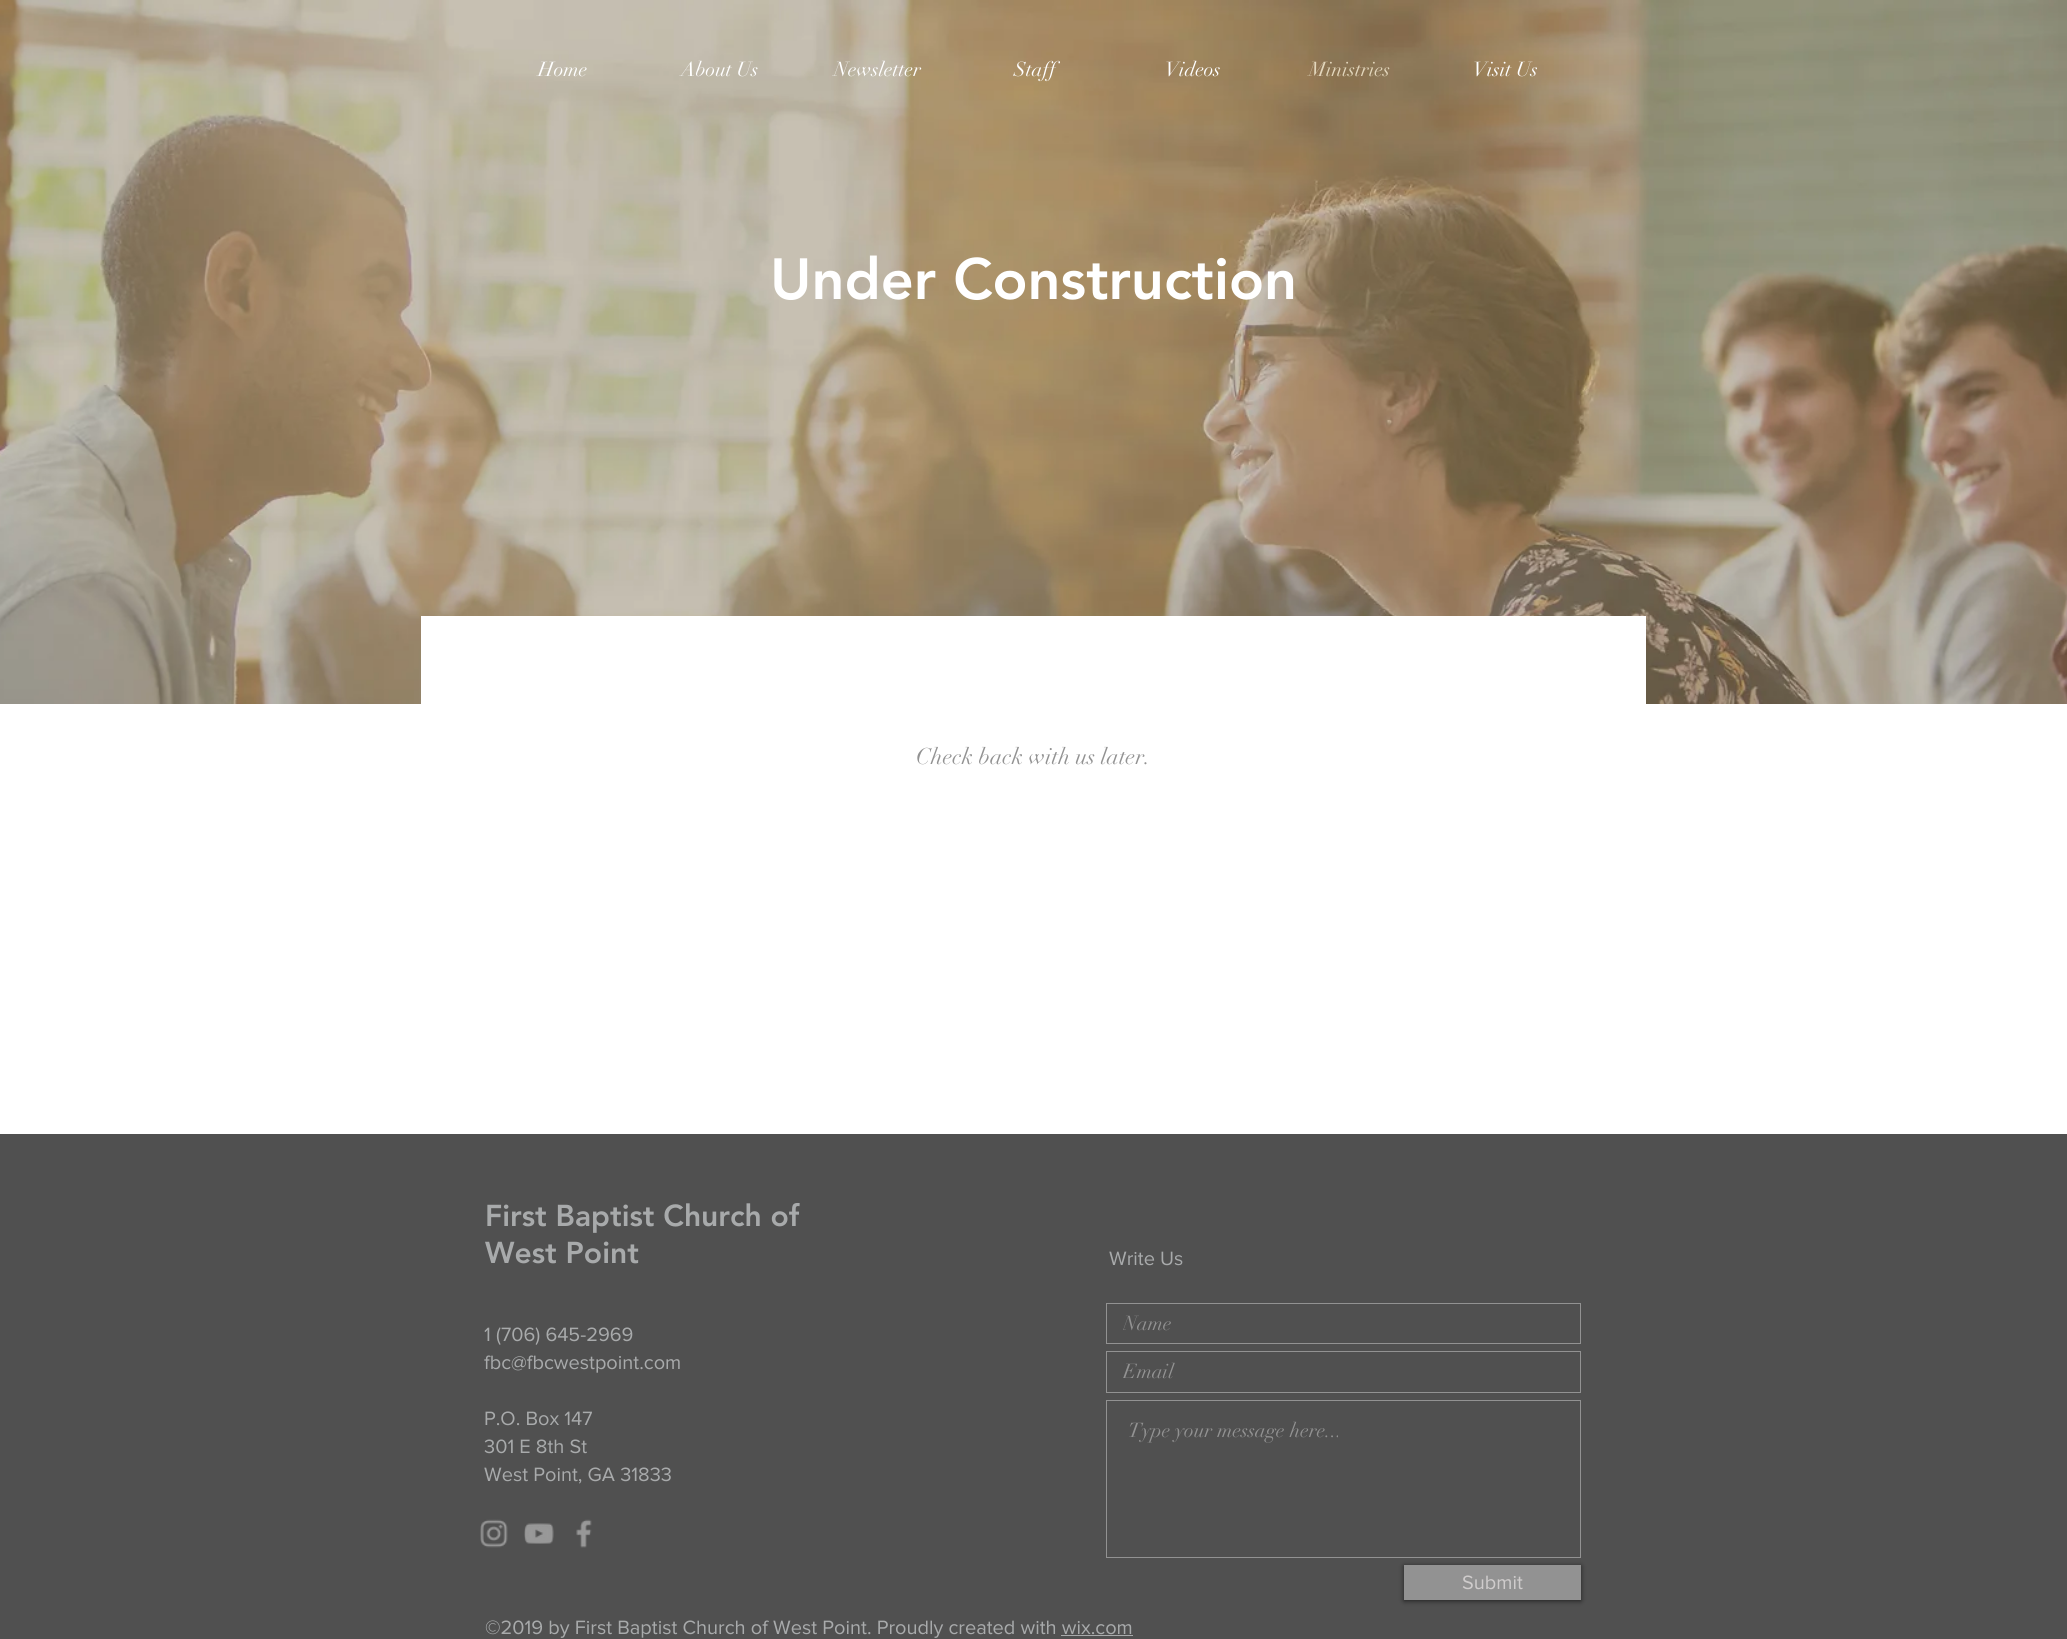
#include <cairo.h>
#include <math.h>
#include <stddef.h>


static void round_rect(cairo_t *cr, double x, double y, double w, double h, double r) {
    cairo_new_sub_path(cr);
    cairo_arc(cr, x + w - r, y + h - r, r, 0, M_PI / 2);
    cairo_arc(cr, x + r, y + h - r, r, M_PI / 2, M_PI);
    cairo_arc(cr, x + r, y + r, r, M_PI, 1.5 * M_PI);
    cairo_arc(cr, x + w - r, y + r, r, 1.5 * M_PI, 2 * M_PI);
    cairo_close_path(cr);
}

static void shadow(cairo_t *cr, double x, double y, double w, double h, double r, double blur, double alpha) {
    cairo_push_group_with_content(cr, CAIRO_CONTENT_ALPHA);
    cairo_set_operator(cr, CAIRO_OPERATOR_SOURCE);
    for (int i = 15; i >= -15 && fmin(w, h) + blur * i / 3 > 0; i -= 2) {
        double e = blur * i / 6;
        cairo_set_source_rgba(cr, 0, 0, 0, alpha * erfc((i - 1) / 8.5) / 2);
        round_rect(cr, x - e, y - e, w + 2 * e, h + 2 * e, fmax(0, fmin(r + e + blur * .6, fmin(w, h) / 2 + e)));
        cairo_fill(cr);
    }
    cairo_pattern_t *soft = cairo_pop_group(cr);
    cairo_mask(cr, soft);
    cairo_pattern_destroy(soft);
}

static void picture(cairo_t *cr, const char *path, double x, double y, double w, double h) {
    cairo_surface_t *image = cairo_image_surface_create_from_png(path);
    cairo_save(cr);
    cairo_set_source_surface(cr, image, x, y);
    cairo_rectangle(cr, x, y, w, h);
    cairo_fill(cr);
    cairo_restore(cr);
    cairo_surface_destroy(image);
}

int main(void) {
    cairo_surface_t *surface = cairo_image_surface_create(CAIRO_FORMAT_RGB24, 2067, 1639);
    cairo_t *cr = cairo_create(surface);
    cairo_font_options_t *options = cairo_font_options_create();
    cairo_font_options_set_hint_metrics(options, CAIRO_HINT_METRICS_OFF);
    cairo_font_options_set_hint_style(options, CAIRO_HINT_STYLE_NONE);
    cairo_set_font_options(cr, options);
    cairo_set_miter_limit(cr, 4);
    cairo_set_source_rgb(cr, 1, 1, 1);
    cairo_paint(cr);
    picture(cr, "img1.png", 0, 0, 2067, 704);
    cairo_select_font_face(cr, "didot", CAIRO_FONT_SLANT_NORMAL, CAIRO_FONT_WEIGHT_NORMAL);
    cairo_set_font_size(cr, 20);
    cairo_set_source_rgb(cr, 1, 1, 1);
    cairo_move_to(cr, 538, 76);
    cairo_show_text(cr, "Home");
    cairo_move_to(cr, 681, 76);
    cairo_show_text(cr, "About Us");
    cairo_move_to(cr, 834, 76);
    cairo_show_text(cr, "Newsletter");
    cairo_move_to(cr, 1014, 76);
    cairo_show_text(cr, "Staff");
    cairo_move_to(cr, 1165, 76);
    cairo_show_text(cr, "Videos");
    cairo_set_source_rgb(cr, 0.89, 0.843, 0.741);
    cairo_move_to(cr, 1309, 76);
    cairo_show_text(cr, "Ministries");
    cairo_set_source_rgb(cr, 1, 1, 1);
    cairo_move_to(cr, 1473, 76);
    cairo_show_text(cr, "Visit Us");
    cairo_select_font_face(cr, "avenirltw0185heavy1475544 Black", CAIRO_FONT_SLANT_NORMAL, CAIRO_FONT_WEIGHT_NORMAL);
    cairo_set_font_size(cr, 57.5);
    cairo_move_to(cr, 770, 299);
    cairo_show_text(cr, "Under Construction");
    cairo_rectangle(cr, 421, 616, 1225, 88);
    cairo_fill(cr);
    cairo_select_font_face(cr, "didot", CAIRO_FONT_SLANT_NORMAL, CAIRO_FONT_WEIGHT_NORMAL);
    cairo_set_font_size(cr, 22.5);
    cairo_set_source_rgb(cr, 0.573, 0.573, 0.573);
    cairo_move_to(cr, 916, 764);
    cairo_show_text(cr, "Check back with us later.");
    cairo_set_source_rgb(cr, 0.314, 0.314, 0.314);
    cairo_rectangle(cr, 0, 1134, 2067, 505);
    cairo_fill(cr);
    cairo_select_font_face(cr, "avenirltw0185heavy1475544 Black", CAIRO_FONT_SLANT_NORMAL, CAIRO_FONT_WEIGHT_NORMAL);
    cairo_set_font_size(cr, 30);
    cairo_set_source_rgb(cr, 0.659, 0.667, 0.671);
    cairo_move_to(cr, 485, 1226);
    cairo_show_text(cr, "First Baptist Church of");
    cairo_move_to(cr, 485, 1263);
    cairo_show_text(cr, "West Point");
    cairo_select_font_face(cr, "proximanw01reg", CAIRO_FONT_SLANT_NORMAL, CAIRO_FONT_WEIGHT_NORMAL);
    cairo_set_font_size(cr, 20);
    cairo_move_to(cr, 1109, 1265);
    cairo_show_text(cr, "Write Us");
    cairo_move_to(cr, 484, 1341);
    cairo_show_text(cr, "1 (706) 645-2969");
    cairo_move_to(cr, 484, 1369);
    cairo_show_text(cr, "fbc@fbcwestpoint.com");
    cairo_move_to(cr, 484, 1425);
    cairo_show_text(cr, "P.O. Box 147");
    cairo_move_to(cr, 484, 1453);
    cairo_show_text(cr, "301 E 8th St");
    cairo_move_to(cr, 484, 1481);
    cairo_show_text(cr, "West Point, GA 31833");
    cairo_rectangle(cr, 1106.5, 1303.5, 474, 40);
    cairo_set_source_rgb(cr, 0.573, 0.573, 0.573);
    cairo_set_line_width(cr, 1);
    cairo_stroke(cr);
    cairo_save(cr);
    cairo_rectangle(cr, 1123, 1311, 453, 25);
    cairo_clip(cr);
    cairo_select_font_face(cr, "didot", CAIRO_FONT_SLANT_NORMAL, CAIRO_FONT_WEIGHT_NORMAL);
    cairo_move_to(cr, 1123, 1330);
    cairo_show_text(cr, "Name");
    cairo_restore(cr);
    cairo_rectangle(cr, 1106.5, 1351.5, 474, 41);
    cairo_stroke(cr);
    cairo_save(cr);
    cairo_rectangle(cr, 1123, 1360, 453, 25);
    cairo_clip(cr);
    cairo_select_font_face(cr, "didot", CAIRO_FONT_SLANT_NORMAL, CAIRO_FONT_WEIGHT_NORMAL);
    cairo_move_to(cr, 1123, 1378);
    cairo_show_text(cr, "Email");
    cairo_restore(cr);
    cairo_rectangle(cr, 1106.5, 1400.5, 474, 157);
    cairo_stroke(cr);
    cairo_select_font_face(cr, "didot", CAIRO_FONT_SLANT_NORMAL, CAIRO_FONT_WEIGHT_NORMAL);
    cairo_move_to(cr, 1128, 1437);
    cairo_show_text(cr, "Type your message here...");
    cairo_set_source_rgb(cr, 0, 0, 0);
    shadow(cr, 1404, 1566, 177, 35, 0, 2.5, 0.6);
    cairo_set_source_rgb(cr, 0.573, 0.573, 0.573);
    cairo_rectangle(cr, 1404, 1565, 177, 35);
    cairo_fill(cr);
    cairo_select_font_face(cr, "proximanw01reg", CAIRO_FONT_SLANT_NORMAL, CAIRO_FONT_WEIGHT_NORMAL);
    cairo_set_source_rgb(cr, 0.812, 0.8, 0.8);
    cairo_move_to(cr, 1462, 1589);
    cairo_show_text(cr, "Submit");
    picture(cr, "img2.png", 480, 1519, 28, 29);
    picture(cr, "img3.png", 524, 1523, 30, 21);
    picture(cr, "img4.png", 576, 1519, 16, 29);
    cairo_set_source_rgb(cr, 0.659, 0.667, 0.671);
    cairo_move_to(cr, 485, 1634);
    cairo_show_text(cr, "©2019 by First Baptist Church of West Point. Proudly created with wix.com");
    cairo_rectangle(cr, 1061, 1635, 72, 1);
    cairo_fill(cr);
    cairo_surface_write_to_png(surface, "page.png");
    cairo_font_options_destroy(options);
    cairo_destroy(cr);
    cairo_surface_destroy(surface);
    return 0;
}
